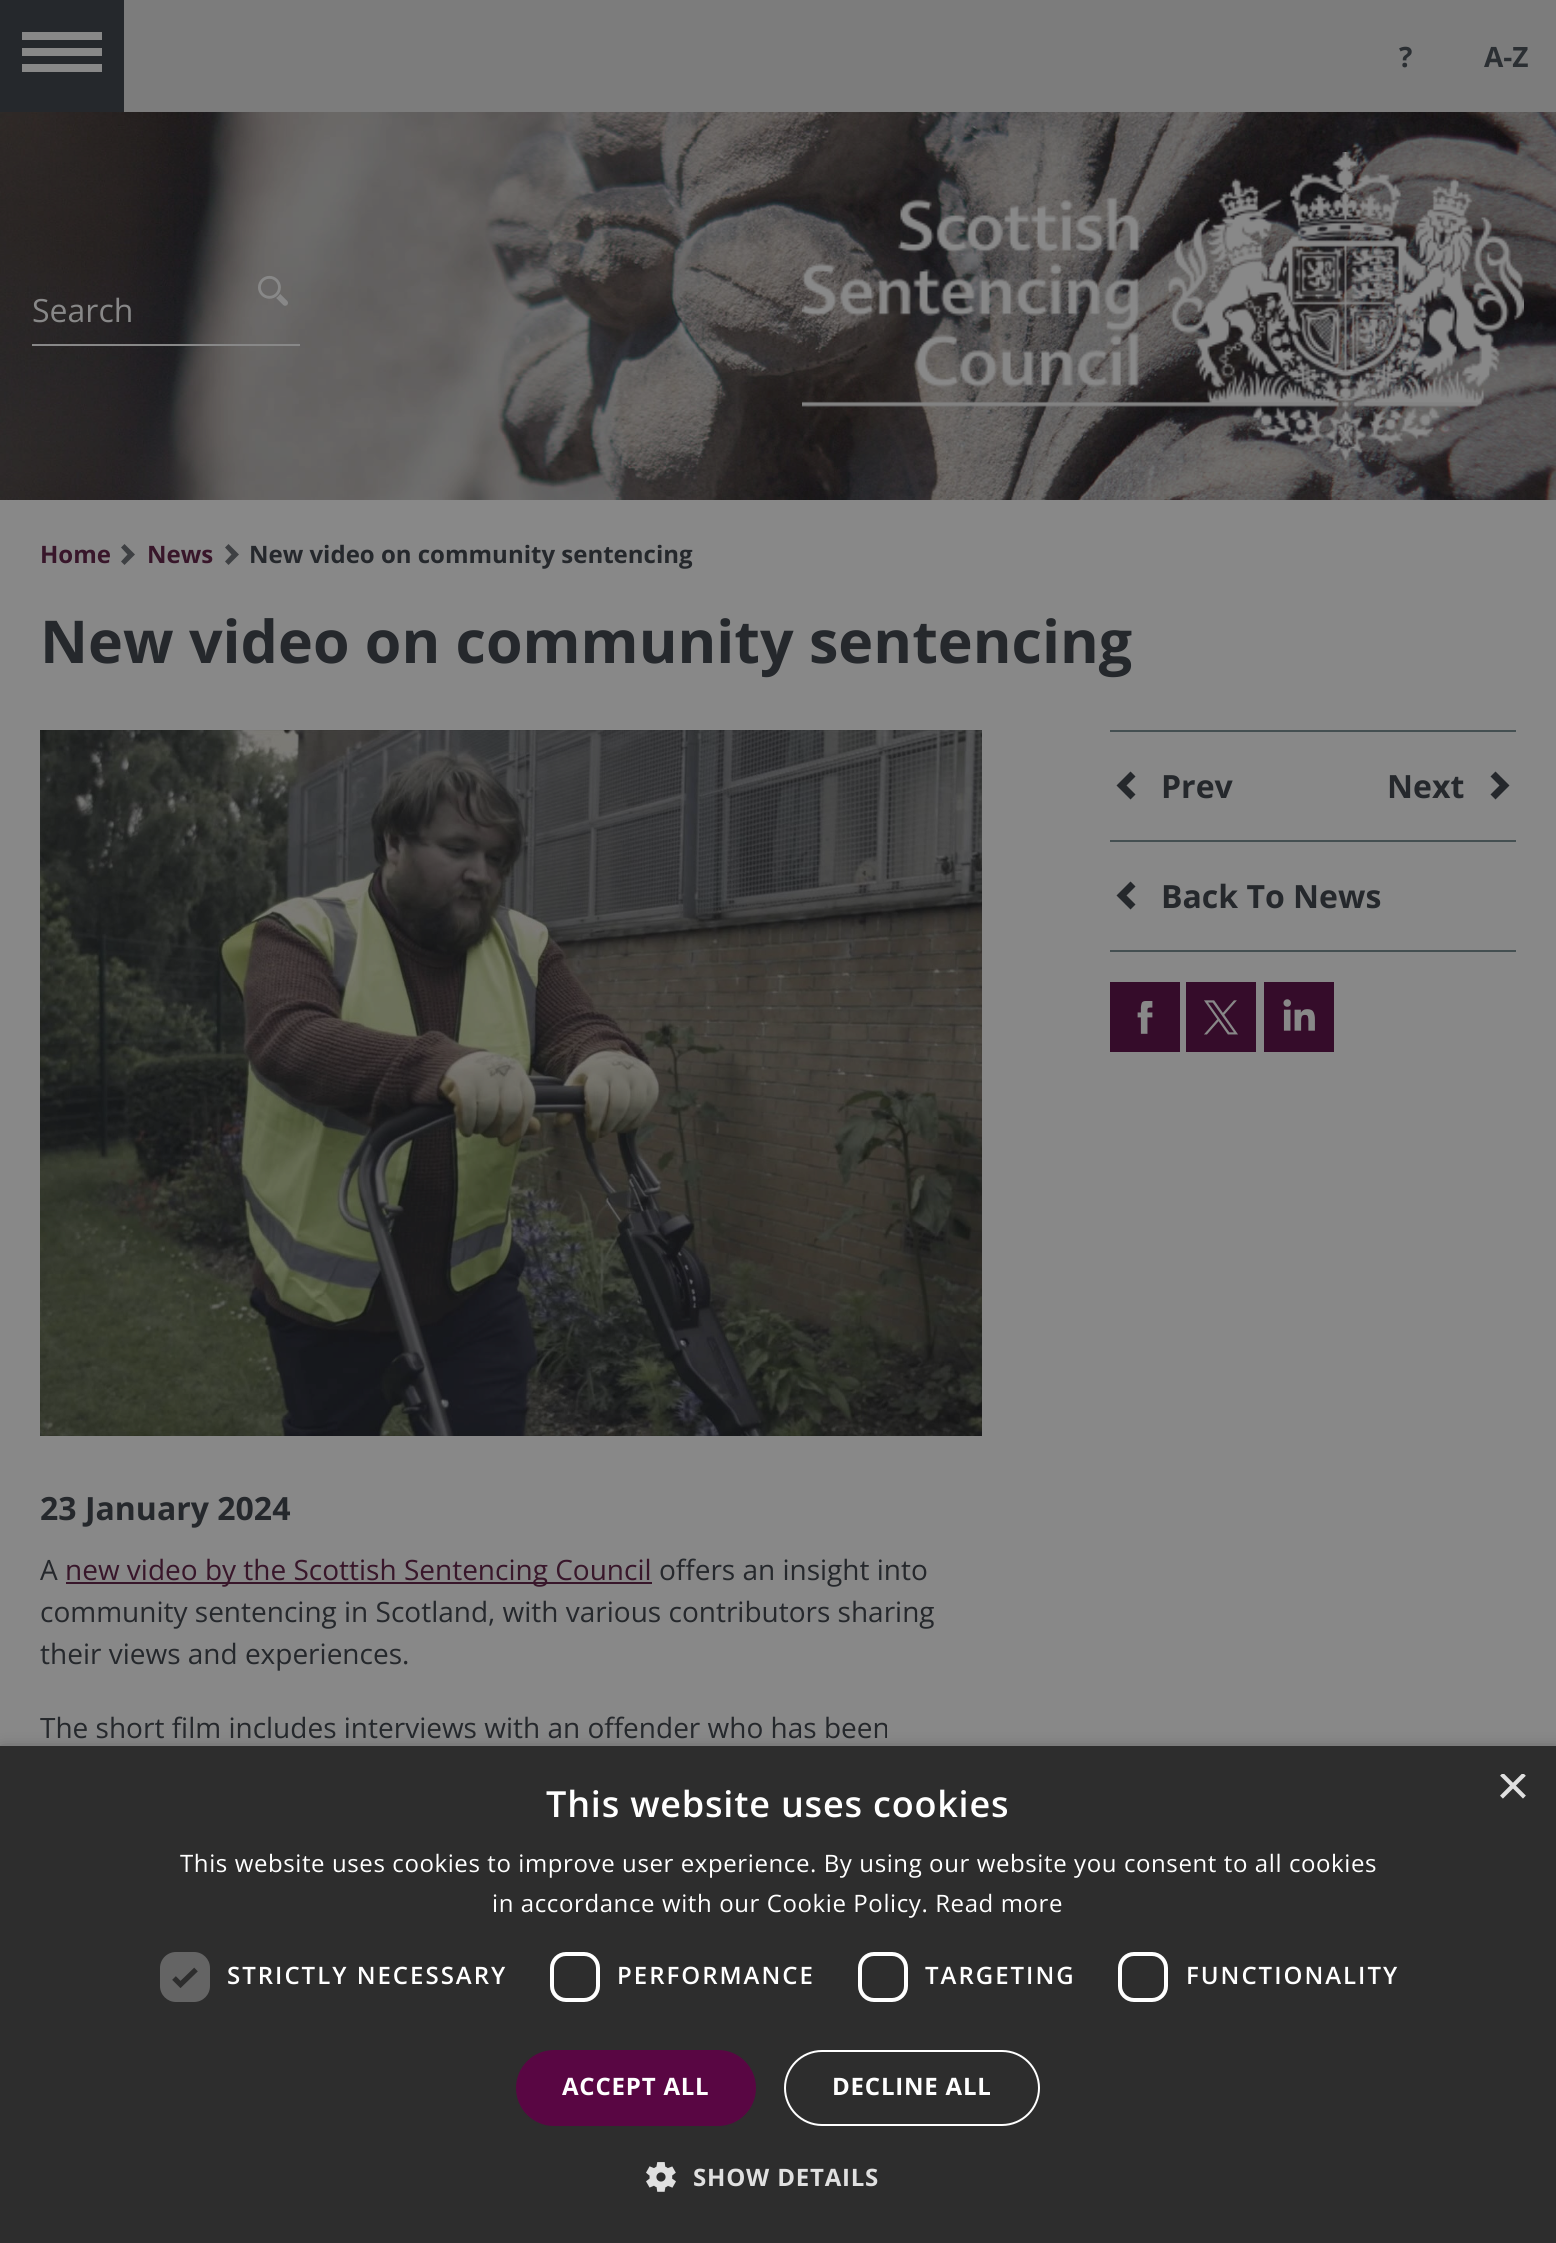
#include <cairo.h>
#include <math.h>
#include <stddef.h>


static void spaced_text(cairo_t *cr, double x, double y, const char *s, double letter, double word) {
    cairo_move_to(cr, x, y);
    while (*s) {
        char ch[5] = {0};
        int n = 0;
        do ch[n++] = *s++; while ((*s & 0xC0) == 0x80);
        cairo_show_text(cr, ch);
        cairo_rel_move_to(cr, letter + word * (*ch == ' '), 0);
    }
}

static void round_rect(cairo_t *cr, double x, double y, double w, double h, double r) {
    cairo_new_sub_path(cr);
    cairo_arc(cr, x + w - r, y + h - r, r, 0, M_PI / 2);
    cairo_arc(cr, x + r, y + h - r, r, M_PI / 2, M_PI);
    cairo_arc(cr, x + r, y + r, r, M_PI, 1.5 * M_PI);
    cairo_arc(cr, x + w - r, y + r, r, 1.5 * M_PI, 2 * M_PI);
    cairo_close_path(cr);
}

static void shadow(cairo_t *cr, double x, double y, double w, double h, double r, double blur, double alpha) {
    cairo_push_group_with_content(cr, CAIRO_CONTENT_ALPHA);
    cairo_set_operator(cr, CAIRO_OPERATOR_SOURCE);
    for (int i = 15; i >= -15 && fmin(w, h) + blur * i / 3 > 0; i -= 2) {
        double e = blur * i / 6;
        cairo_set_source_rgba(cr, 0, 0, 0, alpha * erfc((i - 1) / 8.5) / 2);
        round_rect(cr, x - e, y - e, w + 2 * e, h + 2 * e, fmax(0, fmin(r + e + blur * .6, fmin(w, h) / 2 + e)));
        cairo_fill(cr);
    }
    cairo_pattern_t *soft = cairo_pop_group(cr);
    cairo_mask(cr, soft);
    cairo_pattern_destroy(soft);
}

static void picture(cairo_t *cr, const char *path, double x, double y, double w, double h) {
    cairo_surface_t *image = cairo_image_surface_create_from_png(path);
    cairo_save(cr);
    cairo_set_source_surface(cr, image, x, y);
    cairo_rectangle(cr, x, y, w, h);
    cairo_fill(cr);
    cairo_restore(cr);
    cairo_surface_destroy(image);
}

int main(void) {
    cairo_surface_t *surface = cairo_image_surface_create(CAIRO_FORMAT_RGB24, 1556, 2243);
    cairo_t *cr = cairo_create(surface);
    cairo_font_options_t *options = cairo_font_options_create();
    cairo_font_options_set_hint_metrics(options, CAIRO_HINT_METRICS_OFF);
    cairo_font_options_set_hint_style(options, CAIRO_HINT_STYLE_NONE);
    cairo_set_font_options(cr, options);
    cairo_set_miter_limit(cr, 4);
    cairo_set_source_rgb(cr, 0.533, 0.533, 0.533);
    cairo_paint(cr);
    cairo_set_source_rgb(cr, 0.486, 0.486, 0.486);
    cairo_rectangle(cr, 124, 0, 1432, 112);
    cairo_fill(cr);
    cairo_set_source_rgb(cr, 0.145, 0.157, 0.173);
    cairo_rectangle(cr, 0, 0, 124, 112);
    cairo_fill(cr);
    cairo_set_source_rgb(cr, 0.533, 0.533, 0.533);
    cairo_rectangle(cr, 22, 32, 80, 8);
    cairo_fill(cr);
    cairo_rectangle(cr, 22, 48, 80, 8);
    cairo_fill(cr);
    cairo_rectangle(cr, 22, 64, 80, 8);
    cairo_fill(cr);
    cairo_select_font_face(cr, "Open Sans", CAIRO_FONT_SLANT_NORMAL, CAIRO_FONT_WEIGHT_BOLD);
    cairo_set_font_size(cr, 28);
    cairo_set_source_rgb(cr, 0.169, 0.184, 0.2);
    cairo_move_to(cr, 1399, 67);
    cairo_show_text(cr, "?");
    cairo_move_to(cr, 1484, 67);
    cairo_show_text(cr, "A-Z");
    picture(cr, "img1.png", 0, 112, 1556, 388);
    picture(cr, "img2.png", 258, 275, 30, 31);
    cairo_set_source_rgb(cr, 0.533, 0.533, 0.533);
    cairo_rectangle(cr, 32, 344, 268, 2);
    cairo_fill(cr);
    cairo_select_font_face(cr, "Open Sans", CAIRO_FONT_SLANT_NORMAL, CAIRO_FONT_WEIGHT_NORMAL);
    cairo_set_font_size(cr, 32);
    cairo_move_to(cr, 32, 322);
    cairo_show_text(cr, "Search");
    picture(cr, "img3.png", 802, 152, 722, 308);
    cairo_select_font_face(cr, "Open Sans", CAIRO_FONT_SLANT_NORMAL, CAIRO_FONT_WEIGHT_BOLD);
    cairo_set_font_size(cr, 24);
    cairo_set_source_rgb(cr, 0.22, 0.086, 0.165);
    cairo_move_to(cr, 40, 563);
    cairo_show_text(cr, "Home");
    cairo_set_source_rgb(cr, 0.243, 0.251, 0.263);
    cairo_new_path(cr);
    cairo_move_to(cr, 135, 554.5);
    cairo_line_to(cr, 124.5, 544);
    cairo_line_to(cr, 121, 547.5);
    cairo_line_to(cr, 127.5, 554.5);
    cairo_line_to(cr, 121, 561.5);
    cairo_line_to(cr, 124.5, 565);
    cairo_close_path(cr);
    cairo_fill(cr);
    cairo_set_source_rgb(cr, 0.22, 0.086, 0.165);
    cairo_move_to(cr, 147, 563);
    cairo_show_text(cr, "News");
    cairo_set_source_rgb(cr, 0.243, 0.251, 0.263);
    cairo_new_path(cr);
    cairo_move_to(cr, 239, 554.5);
    cairo_line_to(cr, 228.5, 544);
    cairo_line_to(cr, 225, 547.5);
    cairo_line_to(cr, 231.5, 554.5);
    cairo_line_to(cr, 225, 561.5);
    cairo_line_to(cr, 228.5, 565);
    cairo_close_path(cr);
    cairo_fill(cr);
    cairo_set_source_rgb(cr, 0.145, 0.157, 0.173);
    cairo_move_to(cr, 249, 563);
    cairo_show_text(cr, "New video on community sentencing");
    cairo_set_font_size(cr, 59.1);
    cairo_move_to(cr, 40, 663);
    cairo_show_text(cr, "New video on community sentencing");
    cairo_set_source_rgb(cr, 0.267, 0.31, 0.318);
    cairo_rectangle(cr, 1110, 730, 406, 2);
    cairo_fill(cr);
    cairo_set_font_size(cr, 32);
    cairo_set_source_rgb(cr, 0.145, 0.157, 0.173);
    cairo_move_to(cr, 1161, 798);
    cairo_show_text(cr, "Prev");
    cairo_new_path(cr);
    cairo_move_to(cr, 1116.5, 785.5);
    cairo_line_to(cr, 1130.5, 799.5);
    cairo_line_to(cr, 1135.5, 794.5);
    cairo_line_to(cr, 1126.5, 785.5);
    cairo_line_to(cr, 1135.5, 776.5);
    cairo_line_to(cr, 1130.5, 771.5);
    cairo_close_path(cr);
    cairo_fill(cr);
    cairo_move_to(cr, 1387, 798);
    cairo_show_text(cr, "Next");
    cairo_new_path(cr);
    cairo_move_to(cr, 1509.5, 785.5);
    cairo_line_to(cr, 1495.5, 771.5);
    cairo_line_to(cr, 1490.5, 776.5);
    cairo_line_to(cr, 1499.5, 785.5);
    cairo_line_to(cr, 1490.5, 794.5);
    cairo_line_to(cr, 1495.5, 799.5);
    cairo_close_path(cr);
    cairo_fill(cr);
    cairo_set_source_rgb(cr, 0.267, 0.31, 0.318);
    cairo_rectangle(cr, 1110, 840, 406, 2);
    cairo_fill(cr);
    cairo_rectangle(cr, 1110, 950, 406, 2);
    cairo_fill(cr);
    cairo_set_source_rgb(cr, 0.145, 0.157, 0.173);
    cairo_move_to(cr, 1161, 908);
    cairo_show_text(cr, "Back To News");
    cairo_new_path(cr);
    cairo_move_to(cr, 1116.5, 895.5);
    cairo_line_to(cr, 1130.5, 909.5);
    cairo_line_to(cr, 1135.5, 904.5);
    cairo_line_to(cr, 1126.5, 895.5);
    cairo_line_to(cr, 1135.5, 886.5);
    cairo_line_to(cr, 1130.5, 881.5);
    cairo_close_path(cr);
    cairo_fill(cr);
    cairo_set_source_rgb(cr, 0.208, 0.047, 0.165);
    cairo_rectangle(cr, 1110, 982, 70, 70);
    cairo_fill(cr);
    picture(cr, "img4.png", 1137, 1001, 16, 33);
    cairo_rectangle(cr, 1186, 982, 70, 70);
    cairo_fill(cr);
    picture(cr, "img5.png", 1204, 1000, 34, 35);
    cairo_rectangle(cr, 1264, 982, 70, 70);
    cairo_fill(cr);
    picture(cr, "img6.png", 1283, 999, 32, 32);
    picture(cr, "img7.png", 40, 730, 942, 706);
    cairo_set_source_rgb(cr, 0.145, 0.157, 0.173);
    cairo_move_to(cr, 40, 1520);
    cairo_show_text(cr, "23 January 2024");
    cairo_select_font_face(cr, "Open Sans", CAIRO_FONT_SLANT_NORMAL, CAIRO_FONT_WEIGHT_NORMAL);
    cairo_set_font_size(cr, 28);
    cairo_move_to(cr, 40, 1580);
    cairo_show_text(cr, "A");
    cairo_set_source_rgb(cr, 0.22, 0.086, 0.165);
    cairo_rectangle(cr, 66, 1582, 586, 2);
    cairo_fill(cr);
    cairo_move_to(cr, 65, 1580);
    cairo_show_text(cr, "new video by the Scottish Sentencing Council");
    cairo_set_source_rgb(cr, 0.145, 0.157, 0.173);
    cairo_move_to(cr, 659, 1580);
    cairo_show_text(cr, "offers an insight into");
    cairo_move_to(cr, 40, 1622);
    cairo_show_text(cr, "community sentencing in Scotland, with various contributors sharing");
    cairo_move_to(cr, 40, 1664);
    cairo_show_text(cr, "their views and experiences.");
    cairo_move_to(cr, 40, 1738);
    cairo_show_text(cr, "The short film includes interviews with an offender who has been");
    cairo_set_source_rgb(cr, 0, 0, 0);
    shadow(cr, 2, 1750, 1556, 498, 0, 8, 0.35);
    cairo_set_source_rgb(cr, 0.176, 0.176, 0.176);
    cairo_rectangle(cr, 0, 1746, 1556, 497);
    cairo_fill(cr);
    cairo_save(cr);
    cairo_rectangle(cr, 1496, 1774, 30, 30);
    cairo_clip(cr);
    cairo_select_font_face(cr, "Liberation Sans", CAIRO_FONT_SLANT_NORMAL, CAIRO_FONT_WEIGHT_NORMAL);
    cairo_set_font_size(cr, 58);
    cairo_set_source_rgb(cr, 0.878, 0.878, 0.878);
    cairo_move_to(cr, 1496, 1805);
    cairo_show_text(cr, "×");
    cairo_restore(cr);
    cairo_select_font_face(cr, "Open Sans SemiBold", CAIRO_FONT_SLANT_NORMAL, CAIRO_FONT_WEIGHT_NORMAL);
    cairo_set_font_size(cr, 36);
    cairo_set_source_rgb(cr, 1, 1, 1);
    spaced_text(cr, 546, 1817, "This website uses cookies", 0.8, 0);
    cairo_select_font_face(cr, "Open Sans", CAIRO_FONT_SLANT_NORMAL, CAIRO_FONT_WEIGHT_NORMAL);
    cairo_set_font_size(cr, 24);
    spaced_text(cr, 180, 1872, "This website uses cookies to improve user experience. By using our website you consent to all cookies", 0.6, 0);
    spaced_text(cr, 492, 1912, "in accordance with our Cookie Policy. Read more", 0.6, 0);
    cairo_set_source_rgb(cr, 0.392, 0.392, 0.392);
    round_rect(cr, 160, 1952, 50, 50, 16);
    cairo_fill(cr);
    cairo_new_path(cr);
    cairo_move_to(cr, 174, 1978);
    cairo_line_to(cr, 180.5, 1984.5);
    cairo_line_to(cr, 196, 1969.5);
    cairo_set_source_rgb(cr, 0.176, 0.176, 0.176);
    cairo_set_line_width(cr, 5.2);
    cairo_stroke(cr);
    cairo_select_font_face(cr, "Open Sans SemiBold", CAIRO_FONT_SLANT_NORMAL, CAIRO_FONT_WEIGHT_NORMAL);
    cairo_set_source_rgb(cr, 1, 1, 1);
    spaced_text(cr, 227, 1984, "STRICTLY NECESSARY", 2, 0);
    round_rect(cr, 552, 1954, 46, 46, 14);
    cairo_set_line_width(cr, 4);
    cairo_stroke(cr);
    spaced_text(cr, 617, 1984, "PERFORMANCE", 2, 0);
    round_rect(cr, 860, 1954, 46, 46, 14);
    cairo_stroke(cr);
    spaced_text(cr, 925, 1984, "TARGETING", 2, 0);
    round_rect(cr, 1120, 1954, 46, 46, 14);
    cairo_stroke(cr);
    spaced_text(cr, 1186, 1984, "FUNCTIONALITY", 2, 0);
    cairo_set_source_rgb(cr, 0.349, 0.024, 0.263);
    round_rect(cr, 516, 2050, 240, 76, 38);
    cairo_fill(cr);
    cairo_select_font_face(cr, "Open Sans", CAIRO_FONT_SLANT_NORMAL, CAIRO_FONT_WEIGHT_BOLD);
    cairo_set_source_rgb(cr, 1, 1, 1);
    spaced_text(cr, 562, 2095, "ACCEPT ALL", 0.8, 0);
    round_rect(cr, 785, 2051, 254, 74, 37);
    cairo_set_line_width(cr, 2);
    cairo_stroke(cr);
    spaced_text(cr, 832, 2095, "DECLINE ALL", 0.8, 0);
    picture(cr, "img8.png", 646, 2162, 30, 30);
    cairo_set_source_rgb(cr, 0.878, 0.878, 0.878);
    spaced_text(cr, 693, 2186, "SHOW DETAILS", 0.8, 0);
    cairo_surface_write_to_png(surface, "page.png");
    cairo_font_options_destroy(options);
    cairo_destroy(cr);
    cairo_surface_destroy(surface);
    return 0;
}
